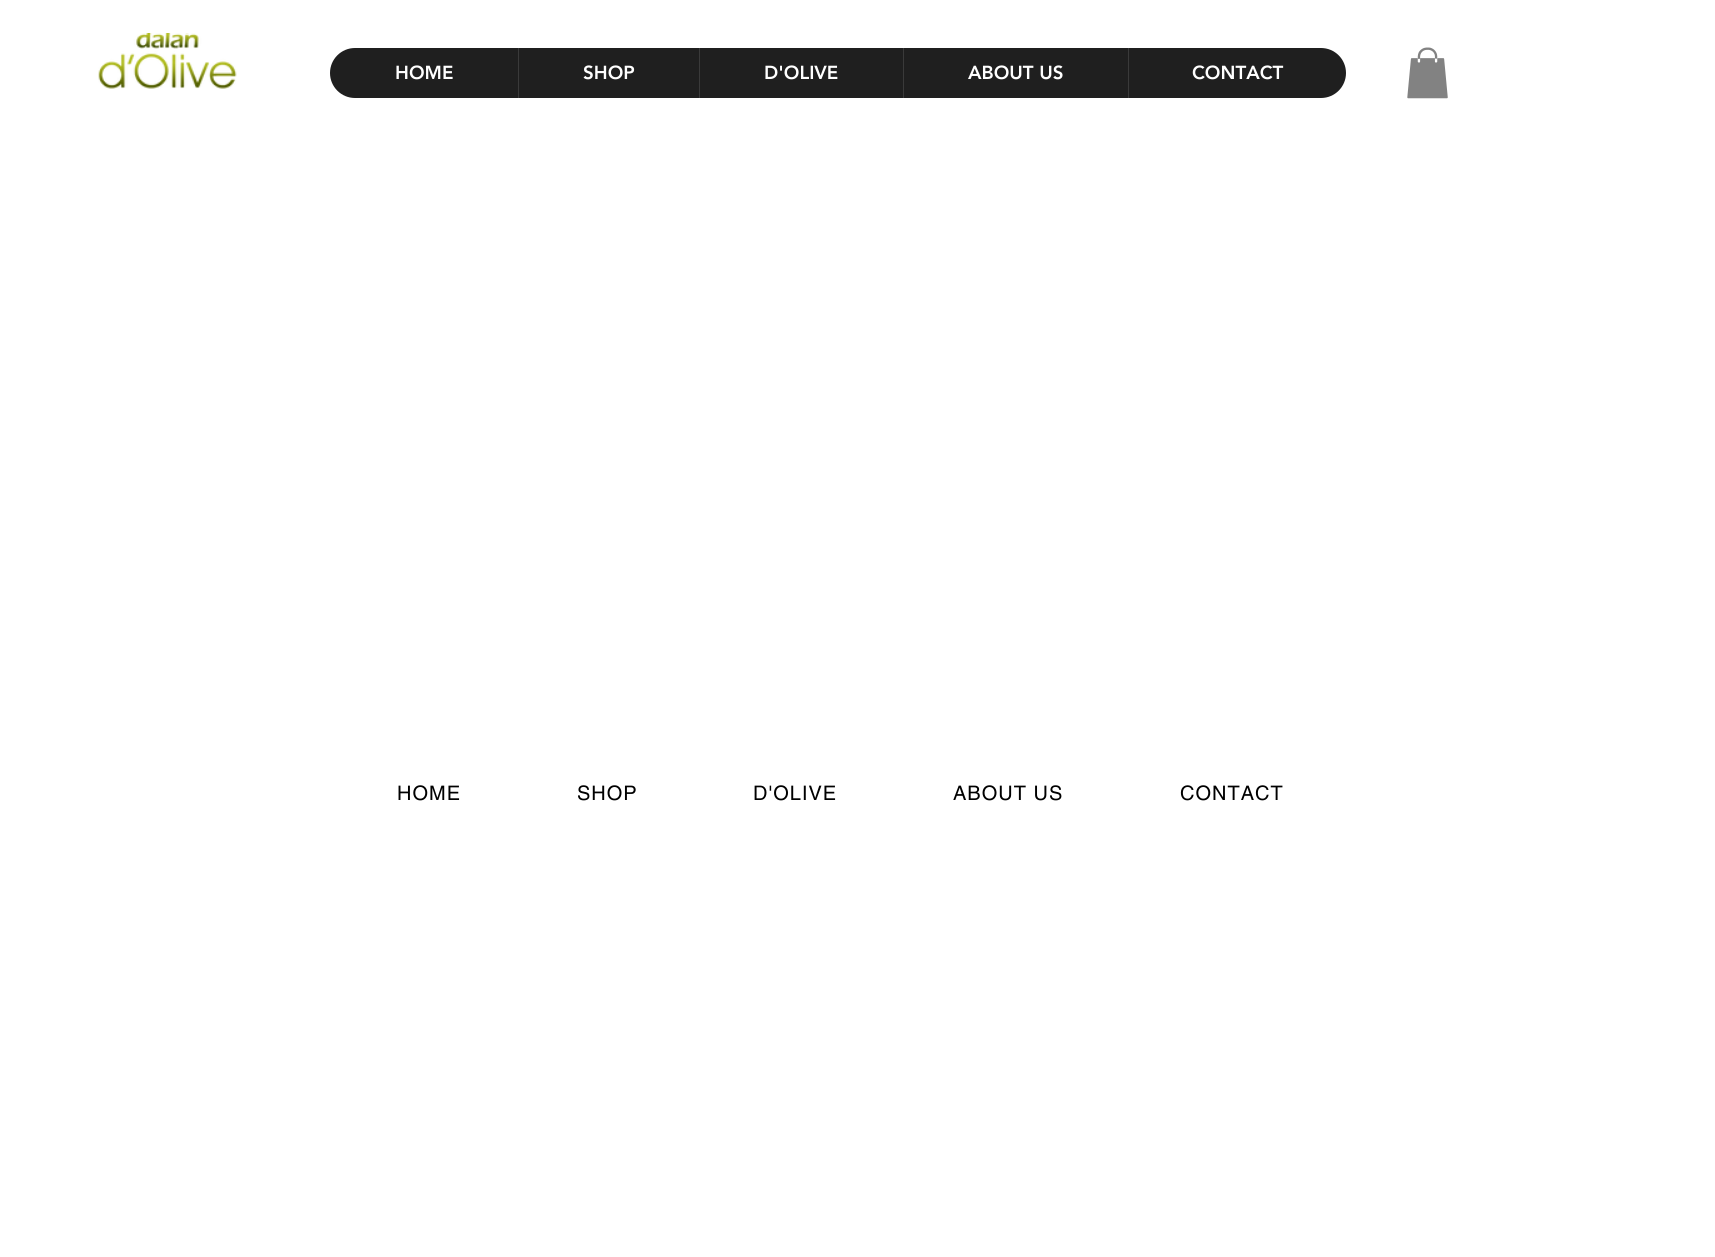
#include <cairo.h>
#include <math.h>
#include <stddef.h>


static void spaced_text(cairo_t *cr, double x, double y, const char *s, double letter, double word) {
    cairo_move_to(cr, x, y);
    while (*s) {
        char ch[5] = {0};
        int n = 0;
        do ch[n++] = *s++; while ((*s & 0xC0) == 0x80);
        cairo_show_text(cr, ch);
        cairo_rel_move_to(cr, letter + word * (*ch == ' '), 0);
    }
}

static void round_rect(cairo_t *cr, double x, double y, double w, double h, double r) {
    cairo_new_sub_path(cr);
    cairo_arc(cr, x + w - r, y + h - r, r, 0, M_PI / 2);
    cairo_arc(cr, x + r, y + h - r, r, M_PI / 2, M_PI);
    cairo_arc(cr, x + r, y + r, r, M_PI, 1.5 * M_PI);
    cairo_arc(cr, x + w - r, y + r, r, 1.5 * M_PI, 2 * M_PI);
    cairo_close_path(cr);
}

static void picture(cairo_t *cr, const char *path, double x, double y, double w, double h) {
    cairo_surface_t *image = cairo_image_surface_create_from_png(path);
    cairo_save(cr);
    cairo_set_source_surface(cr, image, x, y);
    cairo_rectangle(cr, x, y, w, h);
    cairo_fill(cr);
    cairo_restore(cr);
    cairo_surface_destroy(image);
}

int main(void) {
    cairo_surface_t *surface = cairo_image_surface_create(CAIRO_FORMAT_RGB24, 1715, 1257);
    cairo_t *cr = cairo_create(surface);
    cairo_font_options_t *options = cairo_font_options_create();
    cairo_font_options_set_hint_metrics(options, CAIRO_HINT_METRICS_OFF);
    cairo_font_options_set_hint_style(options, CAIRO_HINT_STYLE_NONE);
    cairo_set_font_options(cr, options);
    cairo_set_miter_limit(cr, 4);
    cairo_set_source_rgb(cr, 1, 1, 1);
    cairo_paint(cr);
    picture(cr, "img1.png", 98, 33, 139, 56);
    cairo_set_source_rgb(cr, 0.122, 0.122, 0.122);
    round_rect(cr, 330, 48, 1016, 50, 25);
    cairo_fill(cr);
    cairo_select_font_face(cr, "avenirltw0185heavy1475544 Black", CAIRO_FONT_SLANT_NORMAL, CAIRO_FONT_WEIGHT_NORMAL);
    cairo_set_font_size(cr, 18.75);
    cairo_set_source_rgb(cr, 1, 1, 1);
    cairo_move_to(cr, 395, 79);
    cairo_show_text(cr, "HOME");
    cairo_set_source_rgb(cr, 0.227, 0.227, 0.227);
    cairo_rectangle(cr, 518, 48, 1, 50);
    cairo_fill(cr);
    cairo_set_source_rgb(cr, 1, 1, 1);
    cairo_move_to(cr, 583, 79);
    cairo_show_text(cr, "SHOP");
    cairo_set_source_rgb(cr, 0.227, 0.227, 0.227);
    cairo_rectangle(cr, 699, 48, 1, 50);
    cairo_fill(cr);
    cairo_set_source_rgb(cr, 1, 1, 1);
    cairo_move_to(cr, 764, 79);
    cairo_show_text(cr, "D'OLIVE");
    cairo_set_source_rgb(cr, 0.227, 0.227, 0.227);
    cairo_rectangle(cr, 903, 48, 1, 50);
    cairo_fill(cr);
    cairo_set_source_rgb(cr, 1, 1, 1);
    cairo_move_to(cr, 968, 79);
    cairo_show_text(cr, "ABOUT US");
    cairo_set_source_rgb(cr, 0.227, 0.227, 0.227);
    cairo_rectangle(cr, 1128, 48, 1, 50);
    cairo_fill(cr);
    cairo_set_source_rgb(cr, 1, 1, 1);
    cairo_move_to(cr, 1192, 79);
    cairo_show_text(cr, "CONTACT");
    picture(cr, "img2.png", 1407, 47, 41, 52);
    cairo_select_font_face(cr, "helvetica", CAIRO_FONT_SLANT_NORMAL, CAIRO_FONT_WEIGHT_NORMAL);
    cairo_set_font_size(cr, 20);
    cairo_set_source_rgb(cr, 0, 0, 0);
    spaced_text(cr, 397, 800, "HOME", 1, 0);
    spaced_text(cr, 577, 800, "SHOP", 1, 0);
    spaced_text(cr, 753, 800, "D'OLIVE", 1, 0);
    spaced_text(cr, 953, 800, "ABOUT US", 1, 0);
    spaced_text(cr, 1180, 800, "CONTACT", 1, 0);
    cairo_surface_write_to_png(surface, "page.png");
    cairo_font_options_destroy(options);
    cairo_destroy(cr);
    cairo_surface_destroy(surface);
    return 0;
}
